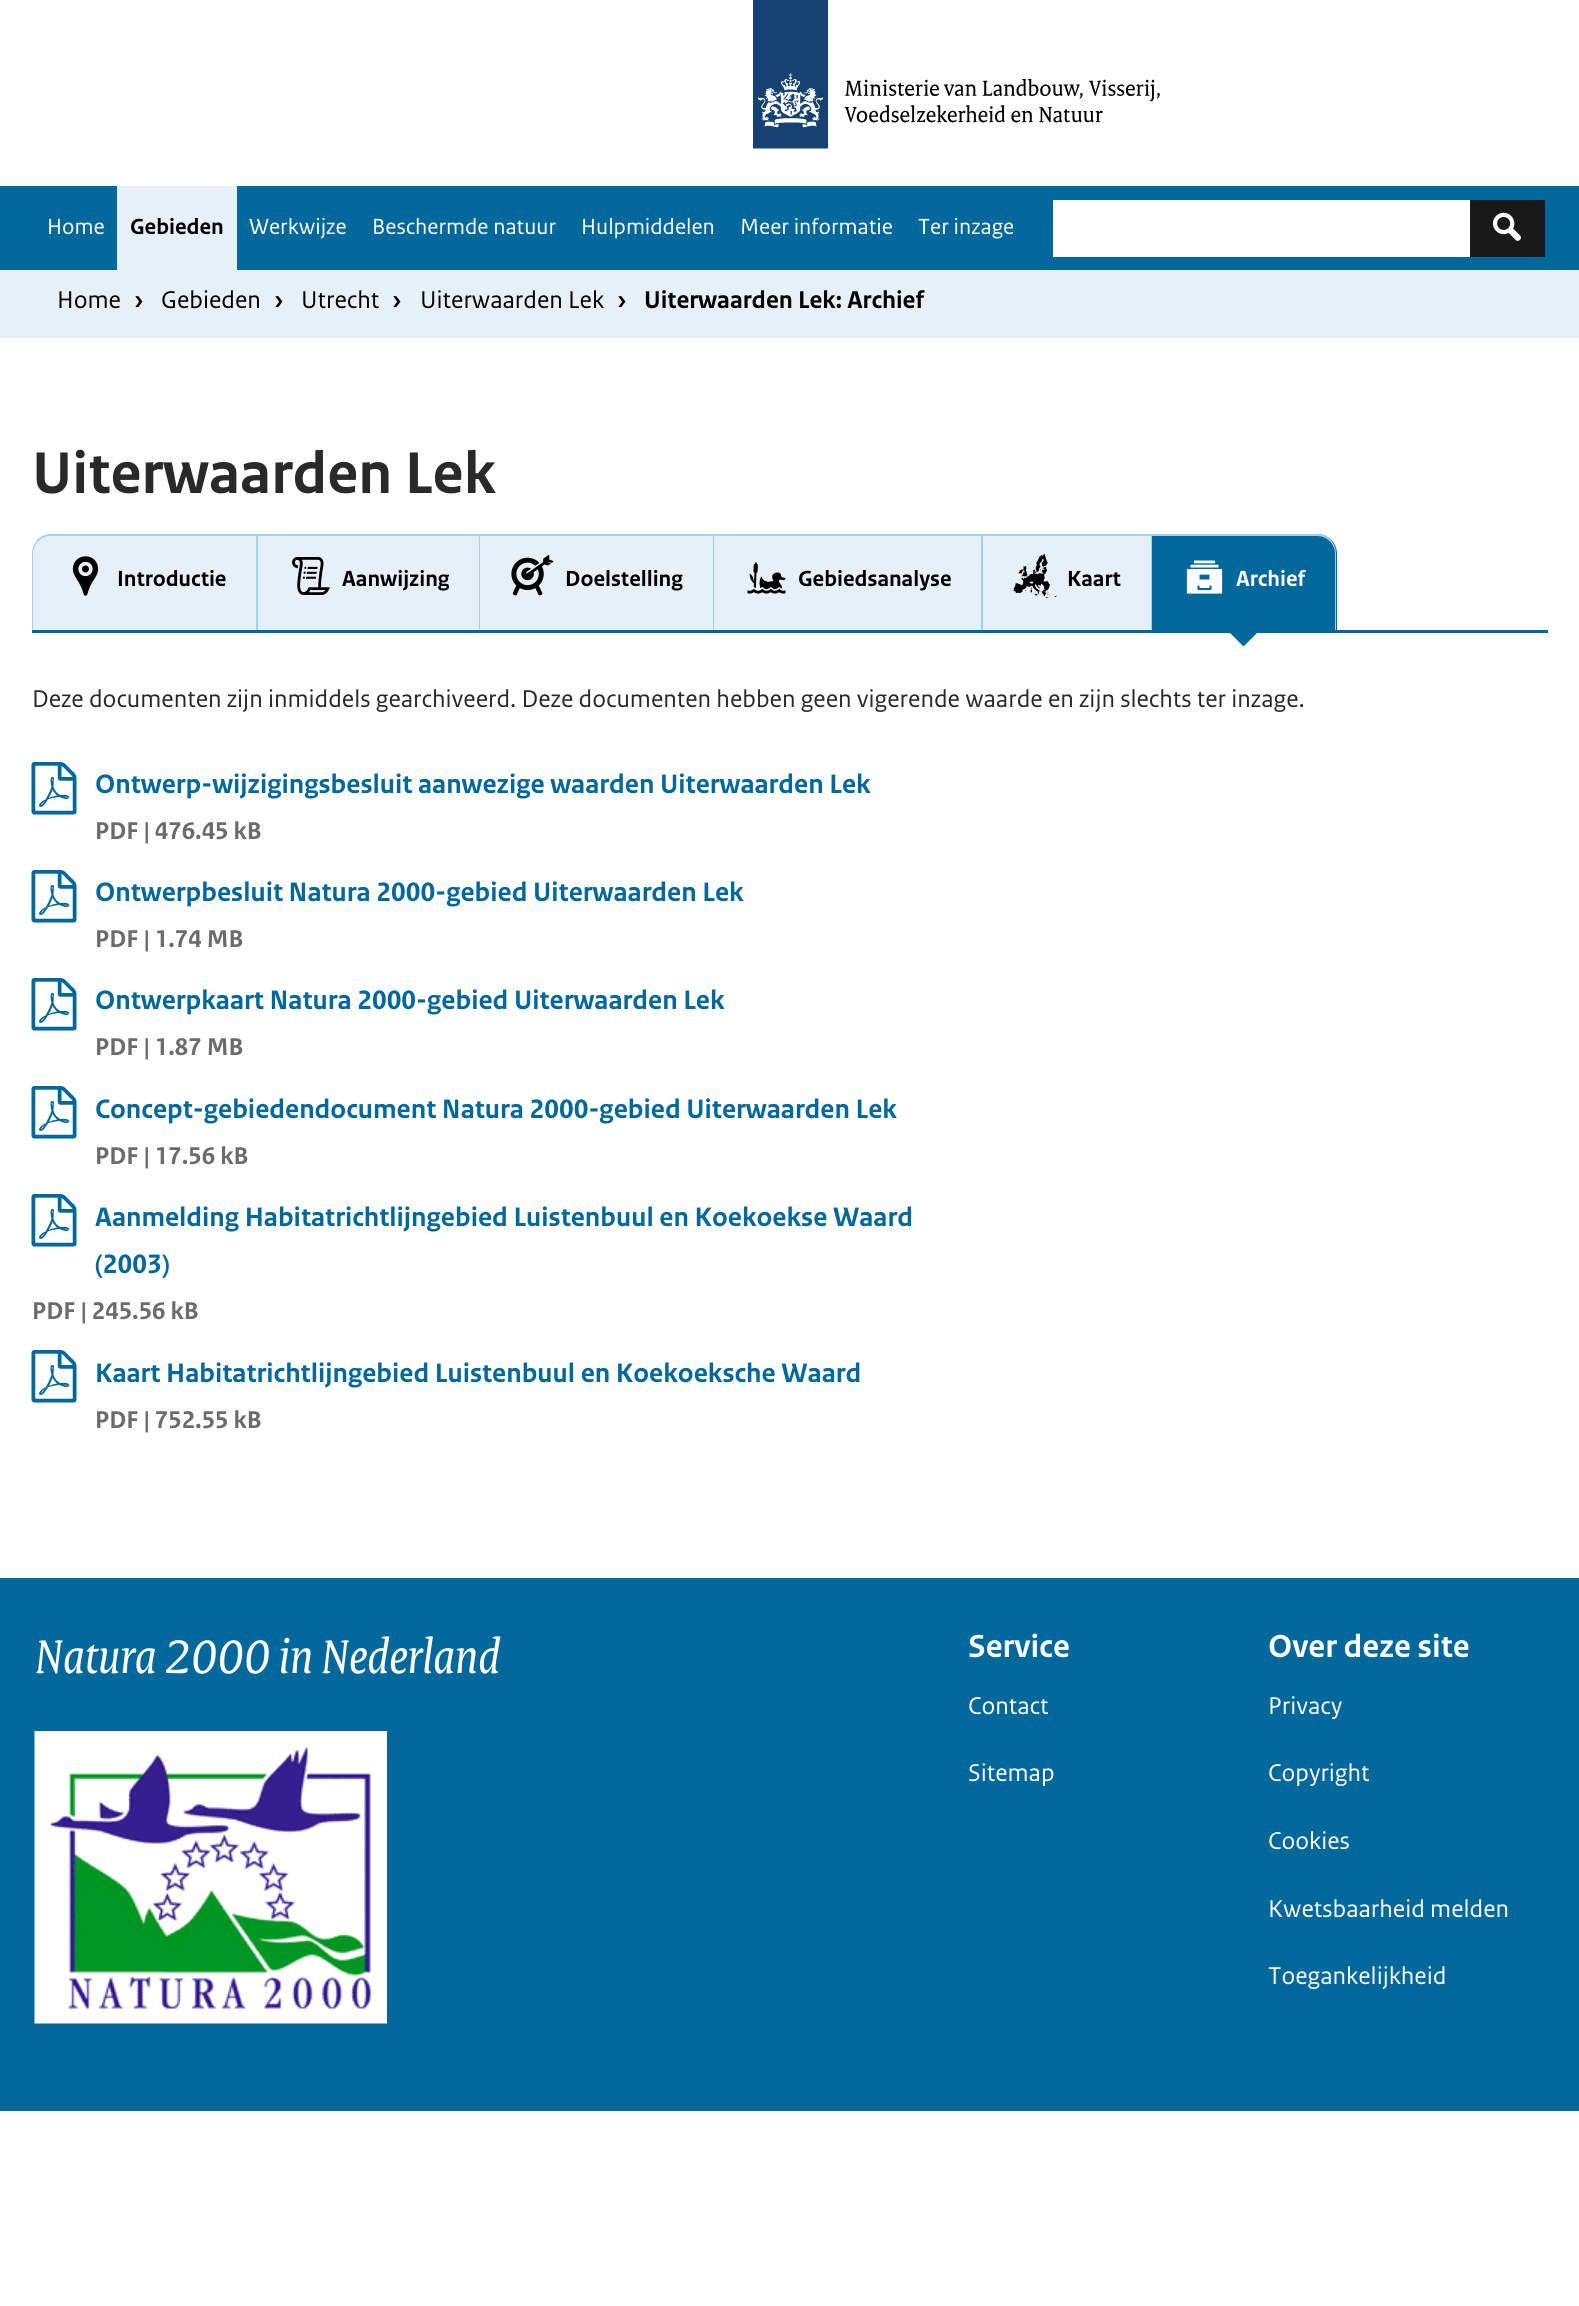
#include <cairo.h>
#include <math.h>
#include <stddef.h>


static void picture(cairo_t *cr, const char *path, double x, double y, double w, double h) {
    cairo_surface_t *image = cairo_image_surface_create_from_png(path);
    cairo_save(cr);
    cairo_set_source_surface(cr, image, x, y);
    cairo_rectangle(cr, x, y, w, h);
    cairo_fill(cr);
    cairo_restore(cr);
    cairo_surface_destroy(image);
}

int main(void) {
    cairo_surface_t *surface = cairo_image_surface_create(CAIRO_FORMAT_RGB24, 1579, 2306);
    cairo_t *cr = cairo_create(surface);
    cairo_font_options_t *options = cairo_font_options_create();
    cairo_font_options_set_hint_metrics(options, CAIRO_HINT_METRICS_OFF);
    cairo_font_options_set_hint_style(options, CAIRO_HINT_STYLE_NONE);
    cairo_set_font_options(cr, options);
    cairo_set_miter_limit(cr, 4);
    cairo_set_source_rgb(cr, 1, 1, 1);
    cairo_paint(cr);
    picture(cr, "img1.png", 753, 0, 407, 149);
    cairo_set_source_rgb(cr, 0.004, 0.408, 0.608);
    cairo_rectangle(cr, 0, 186, 1579, 84);
    cairo_fill(cr);
    cairo_select_font_face(cr, "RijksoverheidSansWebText", CAIRO_FONT_SLANT_NORMAL, CAIRO_FONT_WEIGHT_NORMAL);
    cairo_set_font_size(cr, 23);
    cairo_set_source_rgb(cr, 1, 1, 1);
    cairo_move_to(cr, 47, 234);
    cairo_show_text(cr, "Home");
    cairo_set_source_rgb(cr, 0.898, 0.941, 0.976);
    cairo_rectangle(cr, 117, 186, 120, 84);
    cairo_fill(cr);
    cairo_select_font_face(cr, "RijksoverheidSansWebText", CAIRO_FONT_SLANT_NORMAL, CAIRO_FONT_WEIGHT_BOLD);
    cairo_set_source_rgb(cr, 0, 0, 0);
    cairo_move_to(cr, 130, 234);
    cairo_show_text(cr, "Gebieden");
    cairo_select_font_face(cr, "RijksoverheidSansWebText", CAIRO_FONT_SLANT_NORMAL, CAIRO_FONT_WEIGHT_NORMAL);
    cairo_set_source_rgb(cr, 1, 1, 1);
    cairo_move_to(cr, 249, 234);
    cairo_show_text(cr, "Werkwijze");
    cairo_move_to(cr, 372, 234);
    cairo_show_text(cr, "Beschermde natuur");
    cairo_move_to(cr, 581, 234);
    cairo_show_text(cr, "Hulpmiddelen");
    cairo_move_to(cr, 740, 234);
    cairo_show_text(cr, "Meer informatie");
    cairo_move_to(cr, 918, 234);
    cairo_show_text(cr, "Ter inzage");
    cairo_rectangle(cr, 1053, 200, 417, 57);
    cairo_fill(cr);
    cairo_set_source_rgb(cr, 0.098, 0.098, 0.098);
    cairo_rectangle(cr, 1470, 200, 75, 57);
    cairo_fill(cr);
    picture(cr, "img2.png", 1492, 212, 29, 29);
    cairo_set_source_rgb(cr, 0.898, 0.941, 0.976);
    cairo_rectangle(cr, 0, 270, 1579, 68);
    cairo_fill(cr);
    cairo_set_font_size(cr, 25.5);
    cairo_set_source_rgb(cr, 0, 0, 0);
    cairo_move_to(cr, 57, 308);
    cairo_show_text(cr, "Home");
    cairo_select_font_face(cr, "RijksoverheidSansWebText", CAIRO_FONT_SLANT_NORMAL, CAIRO_FONT_WEIGHT_BOLD);
    cairo_move_to(cr, 134, 308);
    cairo_show_text(cr, "›");
    cairo_select_font_face(cr, "RijksoverheidSansWebText", CAIRO_FONT_SLANT_NORMAL, CAIRO_FONT_WEIGHT_NORMAL);
    cairo_move_to(cr, 161, 308);
    cairo_show_text(cr, "Gebieden");
    cairo_select_font_face(cr, "RijksoverheidSansWebText", CAIRO_FONT_SLANT_NORMAL, CAIRO_FONT_WEIGHT_BOLD);
    cairo_move_to(cr, 274, 308);
    cairo_show_text(cr, "›");
    cairo_select_font_face(cr, "RijksoverheidSansWebText", CAIRO_FONT_SLANT_NORMAL, CAIRO_FONT_WEIGHT_NORMAL);
    cairo_move_to(cr, 301, 308);
    cairo_show_text(cr, "Utrecht");
    cairo_select_font_face(cr, "RijksoverheidSansWebText", CAIRO_FONT_SLANT_NORMAL, CAIRO_FONT_WEIGHT_BOLD);
    cairo_move_to(cr, 392, 308);
    cairo_show_text(cr, "›");
    cairo_select_font_face(cr, "RijksoverheidSansWebText", CAIRO_FONT_SLANT_NORMAL, CAIRO_FONT_WEIGHT_NORMAL);
    cairo_move_to(cr, 420, 308);
    cairo_show_text(cr, "Uiterwaarden Lek");
    cairo_select_font_face(cr, "RijksoverheidSansWebText", CAIRO_FONT_SLANT_NORMAL, CAIRO_FONT_WEIGHT_BOLD);
    cairo_move_to(cr, 617, 308);
    cairo_show_text(cr, "›");
    cairo_move_to(cr, 644, 308);
    cairo_show_text(cr, "Uiterwaarden Lek: Archief");
    cairo_set_font_size(cr, 61.75);
    cairo_set_source_rgb(cr, 0.161, 0.161, 0.161);
    cairo_move_to(cr, 32, 493);
    cairo_show_text(cr, "Uiterwaarden Lek");
    cairo_set_source_rgb(cr, 0.004, 0.408, 0.608);
    cairo_rectangle(cr, 32, 630, 1516, 3);
    cairo_fill(cr);
    cairo_set_source_rgb(cr, 0.898, 0.941, 0.976);
    cairo_new_path(cr);
    cairo_move_to(cr, 52, 534);
    cairo_line_to(cr, 258, 534);
    cairo_line_to(cr, 258, 630);
    cairo_line_to(cr, 32, 630);
    cairo_line_to(cr, 32, 554);
    cairo_curve_to(cr, 32, 543, 41, 534, 52, 534);
    cairo_close_path(cr);
    cairo_fill(cr);
    cairo_set_source_rgb(cr, 0.604, 0.835, 0.953);
    cairo_set_fill_rule(cr, CAIRO_FILL_RULE_EVEN_ODD);
    cairo_new_path(cr);
    cairo_move_to(cr, 51, 534);
    cairo_line_to(cr, 258, 534);
    cairo_line_to(cr, 258, 630);
    cairo_line_to(cr, 32, 630);
    cairo_line_to(cr, 32, 554);
    cairo_curve_to(cr, 32, 543, 40, 534, 51, 534);
    cairo_close_path(cr);
    cairo_move_to(cr, 51, 536);
    cairo_line_to(cr, 256, 536);
    cairo_line_to(cr, 256, 630);
    cairo_line_to(cr, 33, 630);
    cairo_line_to(cr, 33, 554);
    cairo_curve_to(cr, 33, 544, 41, 536, 51, 536);
    cairo_close_path(cr);
    cairo_fill(cr);
    picture(cr, "img3.png", 72, 556, 27, 40);
    cairo_set_font_size(cr, 23);
    cairo_set_source_rgb(cr, 0, 0, 0);
    cairo_move_to(cr, 117, 586);
    cairo_show_text(cr, "Introductie");
    cairo_set_source_rgb(cr, 0.898, 0.941, 0.976);
    cairo_rectangle(cr, 258, 536, 221, 94);
    cairo_fill(cr);
    cairo_set_source_rgb(cr, 0.604, 0.835, 0.953);
    cairo_rectangle(cr, 258, 534, 894, 2);
    cairo_fill(cr);
    cairo_rectangle(cr, 479, 534, 1, 96);
    cairo_fill(cr);
    picture(cr, "img4.png", 292, 557, 38, 38);
    cairo_set_source_rgb(cr, 0, 0, 0);
    cairo_move_to(cr, 342, 586);
    cairo_show_text(cr, "Aanwijzing");
    cairo_set_source_rgb(cr, 0.898, 0.941, 0.976);
    cairo_rectangle(cr, 480, 536, 233, 94);
    cairo_fill(cr);
    cairo_set_source_rgb(cr, 0.604, 0.835, 0.953);
    cairo_rectangle(cr, 713, 534, 1, 96);
    cairo_fill(cr);
    picture(cr, "img5.png", 511, 555, 43, 41);
    cairo_set_source_rgb(cr, 0, 0, 0);
    cairo_move_to(cr, 565, 586);
    cairo_show_text(cr, "Doelstelling");
    cairo_set_source_rgb(cr, 0.898, 0.941, 0.976);
    cairo_rectangle(cr, 714, 536, 267, 94);
    cairo_fill(cr);
    cairo_set_source_rgb(cr, 0.604, 0.835, 0.953);
    cairo_rectangle(cr, 981, 534, 2, 96);
    cairo_fill(cr);
    picture(cr, "img6.png", 747, 562, 39, 32);
    cairo_set_source_rgb(cr, 0, 0, 0);
    cairo_move_to(cr, 798, 586);
    cairo_show_text(cr, "Gebiedsanalyse");
    cairo_set_source_rgb(cr, 0.898, 0.941, 0.976);
    cairo_rectangle(cr, 983, 536, 168, 94);
    cairo_fill(cr);
    cairo_set_source_rgb(cr, 0.604, 0.835, 0.953);
    cairo_rectangle(cr, 1151, 534, 1, 96);
    cairo_fill(cr);
    picture(cr, "img7.png", 1013, 554, 44, 44);
    cairo_set_source_rgb(cr, 0, 0, 0);
    cairo_move_to(cr, 1067, 586);
    cairo_show_text(cr, "Kaart");
    cairo_set_source_rgb(cr, 0.004, 0.408, 0.608);
    cairo_new_path(cr);
    cairo_move_to(cr, 1152, 534);
    cairo_line_to(cr, 1317, 534);
    cairo_curve_to(cr, 1328, 534, 1337, 543, 1337, 554);
    cairo_line_to(cr, 1337, 630);
    cairo_line_to(cr, 1152, 630);
    cairo_close_path(cr);
    cairo_fill(cr);
    cairo_set_source_rgb(cr, 0.604, 0.835, 0.953);
    cairo_new_path(cr);
    cairo_move_to(cr, 1152, 534);
    cairo_line_to(cr, 1317, 534);
    cairo_curve_to(cr, 1328, 534, 1336, 543, 1336, 554);
    cairo_line_to(cr, 1336, 630);
    cairo_line_to(cr, 1152, 630);
    cairo_close_path(cr);
    cairo_move_to(cr, 1152, 536);
    cairo_line_to(cr, 1317, 536);
    cairo_curve_to(cr, 1327, 536, 1335, 544, 1335, 554);
    cairo_line_to(cr, 1335, 630);
    cairo_line_to(cr, 1152, 630);
    cairo_close_path(cr);
    cairo_fill(cr);
    picture(cr, "img8.png", 1186, 560, 37, 34);
    cairo_set_source_rgb(cr, 1, 1, 1);
    cairo_move_to(cr, 1236, 586);
    cairo_show_text(cr, "Archief");
    cairo_set_source_rgb(cr, 0.004, 0.408, 0.608);
    cairo_set_fill_rule(cr, CAIRO_FILL_RULE_WINDING);
    cairo_new_path(cr);
    cairo_move_to(cr, 1228.5, 631.5);
    cairo_line_to(cr, 1258.5, 631.5);
    cairo_line_to(cr, 1243.5, 646.5);
    cairo_close_path(cr);
    cairo_fill(cr);
    cairo_select_font_face(cr, "RijksoverheidSansWebText", CAIRO_FONT_SLANT_NORMAL, CAIRO_FONT_WEIGHT_NORMAL);
    cairo_set_font_size(cr, 25.5);
    cairo_set_source_rgb(cr, 0.161, 0.161, 0.161);
    cairo_move_to(cr, 32, 707);
    cairo_show_text(cr, "Deze documenten zijn inmiddels gearchiveerd. Deze documenten hebben geen vigerende waarde en zijn slechts ter inzage.");
    picture(cr, "img9.png", 31, 762, 46, 53);
    cairo_select_font_face(cr, "RijksoverheidSansWebText", CAIRO_FONT_SLANT_NORMAL, CAIRO_FONT_WEIGHT_BOLD);
    cairo_set_font_size(cr, 28.05);
    cairo_set_source_rgb(cr, 0.004, 0.408, 0.608);
    cairo_move_to(cr, 95, 793);
    cairo_show_text(cr, "Ontwerp-wijzigingsbesluit aanwezige waarden Uiterwaarden Lek");
    cairo_set_font_size(cr, 25.5);
    cairo_set_source_rgb(cr, 0.42, 0.42, 0.42);
    cairo_move_to(cr, 95, 839);
    cairo_show_text(cr, "PDF | 476.45 kB");
    picture(cr, "img9.png", 31, 870, 46, 53);
    cairo_set_font_size(cr, 28.05);
    cairo_set_source_rgb(cr, 0.004, 0.408, 0.608);
    cairo_move_to(cr, 95, 901);
    cairo_show_text(cr, "Ontwerpbesluit Natura 2000-gebied Uiterwaarden Lek");
    cairo_set_font_size(cr, 25.5);
    cairo_set_source_rgb(cr, 0.42, 0.42, 0.42);
    cairo_move_to(cr, 95, 947);
    cairo_show_text(cr, "PDF | 1.74 MB");
    picture(cr, "img9.png", 31, 978, 46, 53);
    cairo_set_font_size(cr, 28.05);
    cairo_set_source_rgb(cr, 0.004, 0.408, 0.608);
    cairo_move_to(cr, 95, 1009);
    cairo_show_text(cr, "Ontwerpkaart Natura 2000-gebied Uiterwaarden Lek");
    cairo_set_font_size(cr, 25.5);
    cairo_set_source_rgb(cr, 0.42, 0.42, 0.42);
    cairo_move_to(cr, 95, 1055);
    cairo_show_text(cr, "PDF | 1.87 MB");
    picture(cr, "img9.png", 31, 1086, 46, 53);
    cairo_set_font_size(cr, 28.05);
    cairo_set_source_rgb(cr, 0.004, 0.408, 0.608);
    cairo_move_to(cr, 95, 1118);
    cairo_show_text(cr, "Concept-gebiedendocument Natura 2000-gebied Uiterwaarden Lek");
    cairo_set_font_size(cr, 25.5);
    cairo_set_source_rgb(cr, 0.42, 0.42, 0.42);
    cairo_move_to(cr, 95, 1164);
    cairo_show_text(cr, "PDF | 17.56 kB");
    picture(cr, "img9.png", 31, 1194, 46, 53);
    cairo_set_font_size(cr, 28.05);
    cairo_set_source_rgb(cr, 0.004, 0.408, 0.608);
    cairo_move_to(cr, 95, 1226);
    cairo_show_text(cr, "Aanmelding Habitatrichtlijngebied Luistenbuul en Koekoekse Waard");
    cairo_move_to(cr, 95, 1273);
    cairo_show_text(cr, "(2003)");
    cairo_set_font_size(cr, 25.5);
    cairo_set_source_rgb(cr, 0.42, 0.42, 0.42);
    cairo_move_to(cr, 32, 1319);
    cairo_show_text(cr, "PDF | 245.56 kB");
    picture(cr, "img9.png", 31, 1350, 46, 53);
    cairo_set_font_size(cr, 28.05);
    cairo_set_source_rgb(cr, 0.004, 0.408, 0.608);
    cairo_move_to(cr, 95, 1382);
    cairo_show_text(cr, "Kaart Habitatrichtlijngebied Luistenbuul en Koekoeksche Waard");
    cairo_set_font_size(cr, 25.5);
    cairo_set_source_rgb(cr, 0.42, 0.42, 0.42);
    cairo_move_to(cr, 95, 1428);
    cairo_show_text(cr, "PDF | 752.55 kB");
    cairo_set_source_rgb(cr, 0.004, 0.408, 0.608);
    cairo_rectangle(cr, 0, 1578, 1579, 533);
    cairo_fill(cr);
    cairo_select_font_face(cr, "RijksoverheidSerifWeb", CAIRO_FONT_SLANT_ITALIC, CAIRO_FONT_WEIGHT_NORMAL);
    cairo_set_font_size(cr, 51);
    cairo_set_source_rgb(cr, 1, 1, 1);
    cairo_move_to(cr, 35, 1673);
    cairo_show_text(cr, "Natura 2000 in Nederland");
    picture(cr, "img10.png", 34, 1731, 353, 293);
    cairo_select_font_face(cr, "RijksoverheidSansWebText", CAIRO_FONT_SLANT_NORMAL, CAIRO_FONT_WEIGHT_BOLD);
    cairo_set_font_size(cr, 33.5);
    cairo_move_to(cr, 968, 1657);
    cairo_show_text(cr, "Service");
    cairo_select_font_face(cr, "RijksoverheidSansWebText", CAIRO_FONT_SLANT_NORMAL, CAIRO_FONT_WEIGHT_NORMAL);
    cairo_set_font_size(cr, 25.5);
    cairo_move_to(cr, 968, 1714);
    cairo_show_text(cr, "Contact");
    cairo_move_to(cr, 968, 1781);
    cairo_show_text(cr, "Sitemap");
    cairo_select_font_face(cr, "RijksoverheidSansWebText", CAIRO_FONT_SLANT_NORMAL, CAIRO_FONT_WEIGHT_BOLD);
    cairo_set_font_size(cr, 33.5);
    cairo_move_to(cr, 1268, 1657);
    cairo_show_text(cr, "Over deze site");
    cairo_select_font_face(cr, "RijksoverheidSansWebText", CAIRO_FONT_SLANT_NORMAL, CAIRO_FONT_WEIGHT_NORMAL);
    cairo_set_font_size(cr, 25.5);
    cairo_move_to(cr, 1268, 1714);
    cairo_show_text(cr, "Privacy");
    cairo_move_to(cr, 1268, 1781);
    cairo_show_text(cr, "Copyright");
    cairo_move_to(cr, 1268, 1849);
    cairo_show_text(cr, "Cookies");
    cairo_move_to(cr, 1268, 1917);
    cairo_show_text(cr, "Kwetsbaarheid melden");
    cairo_move_to(cr, 1268, 1984);
    cairo_show_text(cr, "Toegankelijkheid");
    cairo_surface_write_to_png(surface, "page.png");
    cairo_font_options_destroy(options);
    cairo_destroy(cr);
    cairo_surface_destroy(surface);
    return 0;
}
